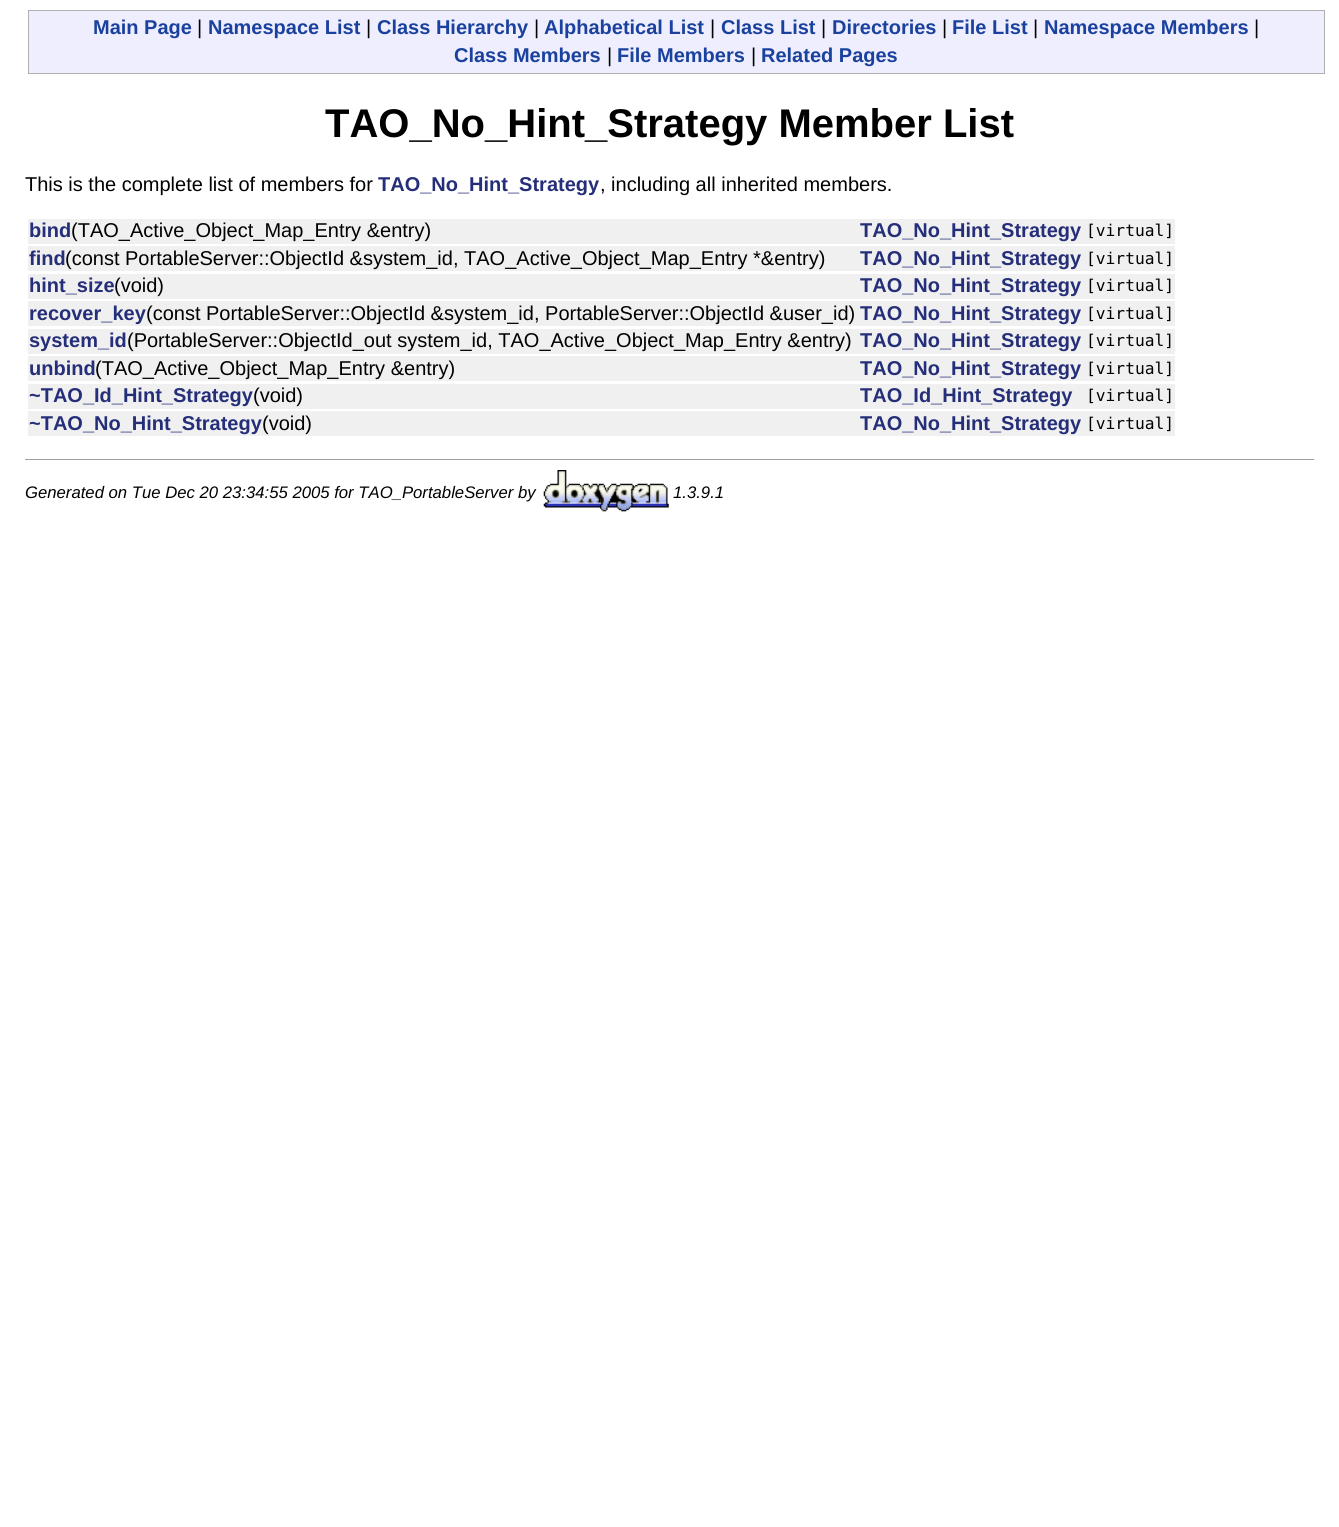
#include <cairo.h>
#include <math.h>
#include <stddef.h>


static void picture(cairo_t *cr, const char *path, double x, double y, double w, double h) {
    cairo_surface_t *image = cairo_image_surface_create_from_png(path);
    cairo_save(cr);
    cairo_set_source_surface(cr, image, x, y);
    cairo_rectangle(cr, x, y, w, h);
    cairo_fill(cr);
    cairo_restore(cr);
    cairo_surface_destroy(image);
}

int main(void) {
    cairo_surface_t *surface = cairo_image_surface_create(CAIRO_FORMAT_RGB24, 1339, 1527);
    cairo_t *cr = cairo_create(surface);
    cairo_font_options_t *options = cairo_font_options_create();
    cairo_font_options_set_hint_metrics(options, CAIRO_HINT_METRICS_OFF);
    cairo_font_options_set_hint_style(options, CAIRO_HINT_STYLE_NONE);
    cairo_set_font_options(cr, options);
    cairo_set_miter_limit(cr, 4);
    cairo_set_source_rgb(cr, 1, 1, 1);
    cairo_paint(cr);
    cairo_set_source_rgb(cr, 0.933, 0.933, 1);
    cairo_rectangle(cr, 28.5, 10.5, 1296, 63);
    cairo_fill_preserve(cr);
    cairo_set_source_rgb(cr, 0.69, 0.69, 0.69);
    cairo_set_line_width(cr, 1);
    cairo_stroke(cr);
    cairo_select_font_face(cr, "Liberation Sans", CAIRO_FONT_SLANT_NORMAL, CAIRO_FONT_WEIGHT_BOLD);
    cairo_set_font_size(cr, 20);
    cairo_set_source_rgb(cr, 0.102, 0.255, 0.616);
    cairo_move_to(cr, 93, 34);
    cairo_show_text(cr, "Main Page");
    cairo_select_font_face(cr, "Liberation Sans", CAIRO_FONT_SLANT_NORMAL, CAIRO_FONT_WEIGHT_NORMAL);
    cairo_set_source_rgb(cr, 0, 0, 0);
    cairo_move_to(cr, 197, 34);
    cairo_show_text(cr, "|");
    cairo_select_font_face(cr, "Liberation Sans", CAIRO_FONT_SLANT_NORMAL, CAIRO_FONT_WEIGHT_BOLD);
    cairo_set_source_rgb(cr, 0.102, 0.255, 0.616);
    cairo_move_to(cr, 208, 34);
    cairo_show_text(cr, "Namespace List");
    cairo_select_font_face(cr, "Liberation Sans", CAIRO_FONT_SLANT_NORMAL, CAIRO_FONT_WEIGHT_NORMAL);
    cairo_set_source_rgb(cr, 0, 0, 0);
    cairo_move_to(cr, 366, 34);
    cairo_show_text(cr, "|");
    cairo_select_font_face(cr, "Liberation Sans", CAIRO_FONT_SLANT_NORMAL, CAIRO_FONT_WEIGHT_BOLD);
    cairo_set_source_rgb(cr, 0.102, 0.255, 0.616);
    cairo_move_to(cr, 377, 34);
    cairo_show_text(cr, "Class Hierarchy");
    cairo_select_font_face(cr, "Liberation Sans", CAIRO_FONT_SLANT_NORMAL, CAIRO_FONT_WEIGHT_NORMAL);
    cairo_set_source_rgb(cr, 0, 0, 0);
    cairo_move_to(cr, 534, 34);
    cairo_show_text(cr, "|");
    cairo_select_font_face(cr, "Liberation Sans", CAIRO_FONT_SLANT_NORMAL, CAIRO_FONT_WEIGHT_BOLD);
    cairo_set_source_rgb(cr, 0.102, 0.255, 0.616);
    cairo_move_to(cr, 544, 34);
    cairo_show_text(cr, "Alphabetical List");
    cairo_select_font_face(cr, "Liberation Sans", CAIRO_FONT_SLANT_NORMAL, CAIRO_FONT_WEIGHT_NORMAL);
    cairo_set_source_rgb(cr, 0, 0, 0);
    cairo_move_to(cr, 710, 34);
    cairo_show_text(cr, "|");
    cairo_select_font_face(cr, "Liberation Sans", CAIRO_FONT_SLANT_NORMAL, CAIRO_FONT_WEIGHT_BOLD);
    cairo_set_source_rgb(cr, 0.102, 0.255, 0.616);
    cairo_move_to(cr, 721, 34);
    cairo_show_text(cr, "Class List");
    cairo_select_font_face(cr, "Liberation Sans", CAIRO_FONT_SLANT_NORMAL, CAIRO_FONT_WEIGHT_NORMAL);
    cairo_set_source_rgb(cr, 0, 0, 0);
    cairo_move_to(cr, 821, 34);
    cairo_show_text(cr, "|");
    cairo_select_font_face(cr, "Liberation Sans", CAIRO_FONT_SLANT_NORMAL, CAIRO_FONT_WEIGHT_BOLD);
    cairo_set_source_rgb(cr, 0.102, 0.255, 0.616);
    cairo_move_to(cr, 832, 34);
    cairo_show_text(cr, "Directories");
    cairo_select_font_face(cr, "Liberation Sans", CAIRO_FONT_SLANT_NORMAL, CAIRO_FONT_WEIGHT_NORMAL);
    cairo_set_source_rgb(cr, 0, 0, 0);
    cairo_move_to(cr, 942, 34);
    cairo_show_text(cr, "|");
    cairo_select_font_face(cr, "Liberation Sans", CAIRO_FONT_SLANT_NORMAL, CAIRO_FONT_WEIGHT_BOLD);
    cairo_set_source_rgb(cr, 0.102, 0.255, 0.616);
    cairo_move_to(cr, 952, 34);
    cairo_show_text(cr, "File List");
    cairo_select_font_face(cr, "Liberation Sans", CAIRO_FONT_SLANT_NORMAL, CAIRO_FONT_WEIGHT_NORMAL);
    cairo_set_source_rgb(cr, 0, 0, 0);
    cairo_move_to(cr, 1033, 34);
    cairo_show_text(cr, "|");
    cairo_select_font_face(cr, "Liberation Sans", CAIRO_FONT_SLANT_NORMAL, CAIRO_FONT_WEIGHT_BOLD);
    cairo_set_source_rgb(cr, 0.102, 0.255, 0.616);
    cairo_move_to(cr, 1044, 34);
    cairo_show_text(cr, "Namespace Members");
    cairo_select_font_face(cr, "Liberation Sans", CAIRO_FONT_SLANT_NORMAL, CAIRO_FONT_WEIGHT_NORMAL);
    cairo_set_source_rgb(cr, 0, 0, 0);
    cairo_move_to(cr, 1254, 34);
    cairo_show_text(cr, "|");
    cairo_select_font_face(cr, "Liberation Sans", CAIRO_FONT_SLANT_NORMAL, CAIRO_FONT_WEIGHT_BOLD);
    cairo_set_source_rgb(cr, 0.102, 0.255, 0.616);
    cairo_move_to(cr, 454, 62);
    cairo_show_text(cr, "Class Members");
    cairo_select_font_face(cr, "Liberation Sans", CAIRO_FONT_SLANT_NORMAL, CAIRO_FONT_WEIGHT_NORMAL);
    cairo_set_source_rgb(cr, 0, 0, 0);
    cairo_move_to(cr, 607, 62);
    cairo_show_text(cr, "|");
    cairo_select_font_face(cr, "Liberation Sans", CAIRO_FONT_SLANT_NORMAL, CAIRO_FONT_WEIGHT_BOLD);
    cairo_set_source_rgb(cr, 0.102, 0.255, 0.616);
    cairo_move_to(cr, 617, 62);
    cairo_show_text(cr, "File Members");
    cairo_select_font_face(cr, "Liberation Sans", CAIRO_FONT_SLANT_NORMAL, CAIRO_FONT_WEIGHT_NORMAL);
    cairo_set_source_rgb(cr, 0, 0, 0);
    cairo_move_to(cr, 751, 62);
    cairo_show_text(cr, "|");
    cairo_select_font_face(cr, "Liberation Sans", CAIRO_FONT_SLANT_NORMAL, CAIRO_FONT_WEIGHT_BOLD);
    cairo_set_source_rgb(cr, 0.102, 0.255, 0.616);
    cairo_move_to(cr, 761, 62);
    cairo_show_text(cr, "Related Pages");
    cairo_set_font_size(cr, 40);
    cairo_set_source_rgb(cr, 0, 0, 0);
    cairo_move_to(cr, 325, 137);
    cairo_show_text(cr, "TAO_No_Hint_Strategy Member List");
    cairo_select_font_face(cr, "Liberation Sans", CAIRO_FONT_SLANT_NORMAL, CAIRO_FONT_WEIGHT_NORMAL);
    cairo_set_font_size(cr, 20);
    cairo_move_to(cr, 25, 191);
    cairo_show_text(cr, "This is the complete list of members for");
    cairo_select_font_face(cr, "Liberation Sans", CAIRO_FONT_SLANT_NORMAL, CAIRO_FONT_WEIGHT_BOLD);
    cairo_set_source_rgb(cr, 0.145, 0.18, 0.471);
    cairo_move_to(cr, 378, 191);
    cairo_show_text(cr, "TAO_No_Hint_Strategy");
    cairo_select_font_face(cr, "Liberation Sans", CAIRO_FONT_SLANT_NORMAL, CAIRO_FONT_WEIGHT_NORMAL);
    cairo_set_source_rgb(cr, 0, 0, 0);
    cairo_move_to(cr, 600, 191);
    cairo_show_text(cr, ", including all inherited members.");
    cairo_set_source_rgb(cr, 0.941, 0.941, 0.941);
    cairo_rectangle(cr, 28, 219, 1147, 25);
    cairo_fill(cr);
    cairo_select_font_face(cr, "Liberation Sans", CAIRO_FONT_SLANT_NORMAL, CAIRO_FONT_WEIGHT_BOLD);
    cairo_set_source_rgb(cr, 0.145, 0.18, 0.471);
    cairo_move_to(cr, 29, 237);
    cairo_show_text(cr, "bind");
    cairo_select_font_face(cr, "Liberation Sans", CAIRO_FONT_SLANT_NORMAL, CAIRO_FONT_WEIGHT_NORMAL);
    cairo_set_source_rgb(cr, 0, 0, 0);
    cairo_move_to(cr, 71, 237);
    cairo_show_text(cr, "(TAO_Active_Object_Map_Entry &entry)");
    cairo_select_font_face(cr, "Liberation Sans", CAIRO_FONT_SLANT_NORMAL, CAIRO_FONT_WEIGHT_BOLD);
    cairo_set_source_rgb(cr, 0.145, 0.18, 0.471);
    cairo_move_to(cr, 860, 237);
    cairo_show_text(cr, "TAO_No_Hint_Strategy");
    cairo_select_font_face(cr, "DejaVu Sans Mono", CAIRO_FONT_SLANT_NORMAL, CAIRO_FONT_WEIGHT_NORMAL);
    cairo_set_font_size(cr, 16.25);
    cairo_set_source_rgb(cr, 0, 0, 0);
    cairo_move_to(cr, 1086, 236);
    cairo_show_text(cr, "[virtual]");
    cairo_set_source_rgb(cr, 0.941, 0.941, 0.941);
    cairo_rectangle(cr, 28, 246, 1147, 25);
    cairo_fill(cr);
    cairo_select_font_face(cr, "Liberation Sans", CAIRO_FONT_SLANT_NORMAL, CAIRO_FONT_WEIGHT_BOLD);
    cairo_set_font_size(cr, 20);
    cairo_set_source_rgb(cr, 0.145, 0.18, 0.471);
    cairo_move_to(cr, 29, 265);
    cairo_show_text(cr, "find");
    cairo_select_font_face(cr, "Liberation Sans", CAIRO_FONT_SLANT_NORMAL, CAIRO_FONT_WEIGHT_NORMAL);
    cairo_set_source_rgb(cr, 0, 0, 0);
    cairo_move_to(cr, 65, 265);
    cairo_show_text(cr, "(const PortableServer::ObjectId &system_id, TAO_Active_Object_Map_Entry *&entry)");
    cairo_select_font_face(cr, "Liberation Sans", CAIRO_FONT_SLANT_NORMAL, CAIRO_FONT_WEIGHT_BOLD);
    cairo_set_source_rgb(cr, 0.145, 0.18, 0.471);
    cairo_move_to(cr, 860, 265);
    cairo_show_text(cr, "TAO_No_Hint_Strategy");
    cairo_select_font_face(cr, "DejaVu Sans Mono", CAIRO_FONT_SLANT_NORMAL, CAIRO_FONT_WEIGHT_NORMAL);
    cairo_set_font_size(cr, 16.25);
    cairo_set_source_rgb(cr, 0, 0, 0);
    cairo_move_to(cr, 1086, 264);
    cairo_show_text(cr, "[virtual]");
    cairo_set_source_rgb(cr, 0.941, 0.941, 0.941);
    cairo_rectangle(cr, 28, 274, 1147, 25);
    cairo_fill(cr);
    cairo_select_font_face(cr, "Liberation Sans", CAIRO_FONT_SLANT_NORMAL, CAIRO_FONT_WEIGHT_BOLD);
    cairo_set_font_size(cr, 20);
    cairo_set_source_rgb(cr, 0.145, 0.18, 0.471);
    cairo_move_to(cr, 29, 292);
    cairo_show_text(cr, "hint_size");
    cairo_select_font_face(cr, "Liberation Sans", CAIRO_FONT_SLANT_NORMAL, CAIRO_FONT_WEIGHT_NORMAL);
    cairo_set_source_rgb(cr, 0, 0, 0);
    cairo_move_to(cr, 114, 292);
    cairo_show_text(cr, "(void)");
    cairo_select_font_face(cr, "Liberation Sans", CAIRO_FONT_SLANT_NORMAL, CAIRO_FONT_WEIGHT_BOLD);
    cairo_set_source_rgb(cr, 0.145, 0.18, 0.471);
    cairo_move_to(cr, 860, 292);
    cairo_show_text(cr, "TAO_No_Hint_Strategy");
    cairo_select_font_face(cr, "DejaVu Sans Mono", CAIRO_FONT_SLANT_NORMAL, CAIRO_FONT_WEIGHT_NORMAL);
    cairo_set_font_size(cr, 16.25);
    cairo_set_source_rgb(cr, 0, 0, 0);
    cairo_move_to(cr, 1086, 291);
    cairo_show_text(cr, "[virtual]");
    cairo_set_source_rgb(cr, 0.941, 0.941, 0.941);
    cairo_rectangle(cr, 28, 301, 1147, 25);
    cairo_fill(cr);
    cairo_select_font_face(cr, "Liberation Sans", CAIRO_FONT_SLANT_NORMAL, CAIRO_FONT_WEIGHT_BOLD);
    cairo_set_font_size(cr, 20);
    cairo_set_source_rgb(cr, 0.145, 0.18, 0.471);
    cairo_move_to(cr, 29, 320);
    cairo_show_text(cr, "recover_key");
    cairo_select_font_face(cr, "Liberation Sans", CAIRO_FONT_SLANT_NORMAL, CAIRO_FONT_WEIGHT_NORMAL);
    cairo_set_source_rgb(cr, 0, 0, 0);
    cairo_move_to(cr, 146, 320);
    cairo_show_text(cr, "(const PortableServer::ObjectId &system_id, PortableServer::ObjectId &user_id)");
    cairo_select_font_face(cr, "Liberation Sans", CAIRO_FONT_SLANT_NORMAL, CAIRO_FONT_WEIGHT_BOLD);
    cairo_set_source_rgb(cr, 0.145, 0.18, 0.471);
    cairo_move_to(cr, 860, 320);
    cairo_show_text(cr, "TAO_No_Hint_Strategy");
    cairo_select_font_face(cr, "DejaVu Sans Mono", CAIRO_FONT_SLANT_NORMAL, CAIRO_FONT_WEIGHT_NORMAL);
    cairo_set_font_size(cr, 16.25);
    cairo_set_source_rgb(cr, 0, 0, 0);
    cairo_move_to(cr, 1086, 319);
    cairo_show_text(cr, "[virtual]");
    cairo_set_source_rgb(cr, 0.941, 0.941, 0.941);
    cairo_rectangle(cr, 28, 329, 1147, 25);
    cairo_fill(cr);
    cairo_select_font_face(cr, "Liberation Sans", CAIRO_FONT_SLANT_NORMAL, CAIRO_FONT_WEIGHT_BOLD);
    cairo_set_font_size(cr, 20);
    cairo_set_source_rgb(cr, 0.145, 0.18, 0.471);
    cairo_move_to(cr, 29, 347);
    cairo_show_text(cr, "system_id");
    cairo_select_font_face(cr, "Liberation Sans", CAIRO_FONT_SLANT_NORMAL, CAIRO_FONT_WEIGHT_NORMAL);
    cairo_set_source_rgb(cr, 0, 0, 0);
    cairo_move_to(cr, 127, 347);
    cairo_show_text(cr, "(PortableServer::ObjectId_out system_id, TAO_Active_Object_Map_Entry &entry)");
    cairo_select_font_face(cr, "Liberation Sans", CAIRO_FONT_SLANT_NORMAL, CAIRO_FONT_WEIGHT_BOLD);
    cairo_set_source_rgb(cr, 0.145, 0.18, 0.471);
    cairo_move_to(cr, 860, 347);
    cairo_show_text(cr, "TAO_No_Hint_Strategy");
    cairo_select_font_face(cr, "DejaVu Sans Mono", CAIRO_FONT_SLANT_NORMAL, CAIRO_FONT_WEIGHT_NORMAL);
    cairo_set_font_size(cr, 16.25);
    cairo_set_source_rgb(cr, 0, 0, 0);
    cairo_move_to(cr, 1086, 346);
    cairo_show_text(cr, "[virtual]");
    cairo_set_source_rgb(cr, 0.941, 0.941, 0.941);
    cairo_rectangle(cr, 28, 356, 1147, 25);
    cairo_fill(cr);
    cairo_select_font_face(cr, "Liberation Sans", CAIRO_FONT_SLANT_NORMAL, CAIRO_FONT_WEIGHT_BOLD);
    cairo_set_font_size(cr, 20);
    cairo_set_source_rgb(cr, 0.145, 0.18, 0.471);
    cairo_move_to(cr, 29, 375);
    cairo_show_text(cr, "unbind");
    cairo_select_font_face(cr, "Liberation Sans", CAIRO_FONT_SLANT_NORMAL, CAIRO_FONT_WEIGHT_NORMAL);
    cairo_set_source_rgb(cr, 0, 0, 0);
    cairo_move_to(cr, 95, 375);
    cairo_show_text(cr, "(TAO_Active_Object_Map_Entry &entry)");
    cairo_select_font_face(cr, "Liberation Sans", CAIRO_FONT_SLANT_NORMAL, CAIRO_FONT_WEIGHT_BOLD);
    cairo_set_source_rgb(cr, 0.145, 0.18, 0.471);
    cairo_move_to(cr, 860, 375);
    cairo_show_text(cr, "TAO_No_Hint_Strategy");
    cairo_select_font_face(cr, "DejaVu Sans Mono", CAIRO_FONT_SLANT_NORMAL, CAIRO_FONT_WEIGHT_NORMAL);
    cairo_set_font_size(cr, 16.25);
    cairo_set_source_rgb(cr, 0, 0, 0);
    cairo_move_to(cr, 1086, 374);
    cairo_show_text(cr, "[virtual]");
    cairo_set_source_rgb(cr, 0.941, 0.941, 0.941);
    cairo_rectangle(cr, 28, 384, 1147, 25);
    cairo_fill(cr);
    cairo_select_font_face(cr, "Liberation Sans", CAIRO_FONT_SLANT_NORMAL, CAIRO_FONT_WEIGHT_BOLD);
    cairo_set_font_size(cr, 20);
    cairo_set_source_rgb(cr, 0.145, 0.18, 0.471);
    cairo_move_to(cr, 29, 402);
    cairo_show_text(cr, "~TAO_Id_Hint_Strategy");
    cairo_select_font_face(cr, "Liberation Sans", CAIRO_FONT_SLANT_NORMAL, CAIRO_FONT_WEIGHT_NORMAL);
    cairo_set_source_rgb(cr, 0, 0, 0);
    cairo_move_to(cr, 253, 402);
    cairo_show_text(cr, "(void)");
    cairo_select_font_face(cr, "Liberation Sans", CAIRO_FONT_SLANT_NORMAL, CAIRO_FONT_WEIGHT_BOLD);
    cairo_set_source_rgb(cr, 0.145, 0.18, 0.471);
    cairo_move_to(cr, 860, 402);
    cairo_show_text(cr, "TAO_Id_Hint_Strategy");
    cairo_select_font_face(cr, "DejaVu Sans Mono", CAIRO_FONT_SLANT_NORMAL, CAIRO_FONT_WEIGHT_NORMAL);
    cairo_set_font_size(cr, 16.25);
    cairo_set_source_rgb(cr, 0, 0, 0);
    cairo_move_to(cr, 1086, 401);
    cairo_show_text(cr, "[virtual]");
    cairo_set_source_rgb(cr, 0.941, 0.941, 0.941);
    cairo_rectangle(cr, 28, 411, 1147, 25);
    cairo_fill(cr);
    cairo_select_font_face(cr, "Liberation Sans", CAIRO_FONT_SLANT_NORMAL, CAIRO_FONT_WEIGHT_BOLD);
    cairo_set_font_size(cr, 20);
    cairo_set_source_rgb(cr, 0.145, 0.18, 0.471);
    cairo_move_to(cr, 29, 430);
    cairo_show_text(cr, "~TAO_No_Hint_Strategy");
    cairo_select_font_face(cr, "Liberation Sans", CAIRO_FONT_SLANT_NORMAL, CAIRO_FONT_WEIGHT_NORMAL);
    cairo_set_source_rgb(cr, 0, 0, 0);
    cairo_move_to(cr, 262, 430);
    cairo_show_text(cr, "(void)");
    cairo_select_font_face(cr, "Liberation Sans", CAIRO_FONT_SLANT_NORMAL, CAIRO_FONT_WEIGHT_BOLD);
    cairo_set_source_rgb(cr, 0.145, 0.18, 0.471);
    cairo_move_to(cr, 860, 430);
    cairo_show_text(cr, "TAO_No_Hint_Strategy");
    cairo_select_font_face(cr, "DejaVu Sans Mono", CAIRO_FONT_SLANT_NORMAL, CAIRO_FONT_WEIGHT_NORMAL);
    cairo_set_font_size(cr, 16.25);
    cairo_set_source_rgb(cr, 0, 0, 0);
    cairo_move_to(cr, 1086, 429);
    cairo_show_text(cr, "[virtual]");
    cairo_set_source_rgb(cr, 0.624, 0.624, 0.624);
    cairo_rectangle(cr, 25, 459, 1290, 1);
    cairo_fill(cr);
    cairo_set_source_rgb(cr, 0.933, 0.933, 0.933);
    cairo_rectangle(cr, 1314, 459, 1, 1);
    cairo_fill(cr);
    cairo_select_font_face(cr, "Liberation Sans", CAIRO_FONT_SLANT_ITALIC, CAIRO_FONT_WEIGHT_NORMAL);
    cairo_set_font_size(cr, 16.7);
    cairo_set_source_rgb(cr, 0, 0, 0);
    cairo_move_to(cr, 25, 498);
    cairo_show_text(cr, "Generated on Tue Dec 20 23:34:55 2005 for TAO_PortableServer by");
    picture(cr, "img1.png", 543, 470, 126, 42);
    cairo_move_to(cr, 673, 498);
    cairo_show_text(cr, "1.3.9.1");
    cairo_surface_write_to_png(surface, "page.png");
    cairo_font_options_destroy(options);
    cairo_destroy(cr);
    cairo_surface_destroy(surface);
    return 0;
}
